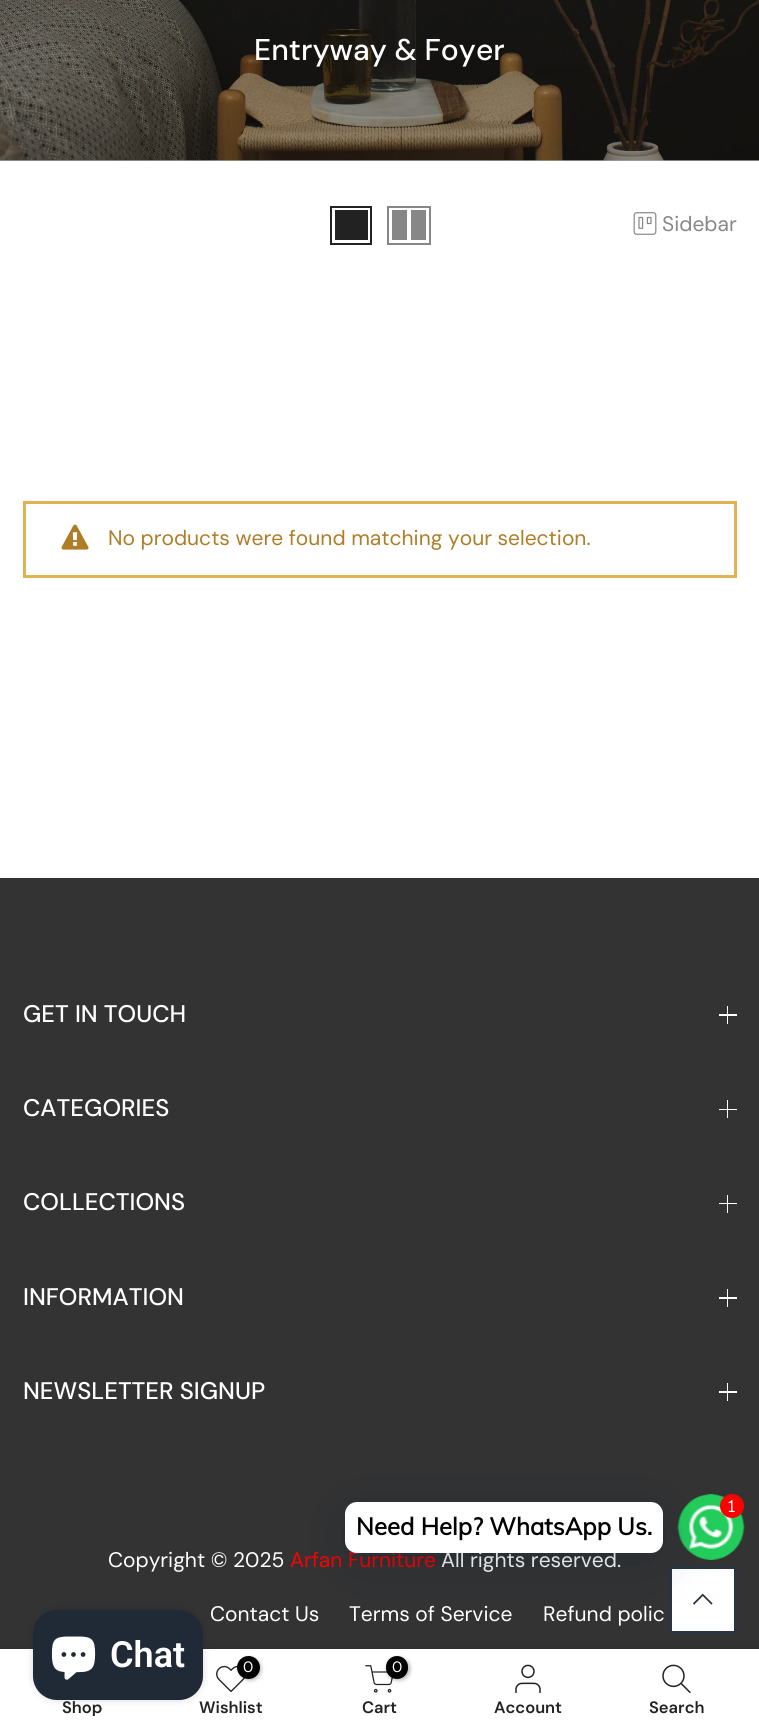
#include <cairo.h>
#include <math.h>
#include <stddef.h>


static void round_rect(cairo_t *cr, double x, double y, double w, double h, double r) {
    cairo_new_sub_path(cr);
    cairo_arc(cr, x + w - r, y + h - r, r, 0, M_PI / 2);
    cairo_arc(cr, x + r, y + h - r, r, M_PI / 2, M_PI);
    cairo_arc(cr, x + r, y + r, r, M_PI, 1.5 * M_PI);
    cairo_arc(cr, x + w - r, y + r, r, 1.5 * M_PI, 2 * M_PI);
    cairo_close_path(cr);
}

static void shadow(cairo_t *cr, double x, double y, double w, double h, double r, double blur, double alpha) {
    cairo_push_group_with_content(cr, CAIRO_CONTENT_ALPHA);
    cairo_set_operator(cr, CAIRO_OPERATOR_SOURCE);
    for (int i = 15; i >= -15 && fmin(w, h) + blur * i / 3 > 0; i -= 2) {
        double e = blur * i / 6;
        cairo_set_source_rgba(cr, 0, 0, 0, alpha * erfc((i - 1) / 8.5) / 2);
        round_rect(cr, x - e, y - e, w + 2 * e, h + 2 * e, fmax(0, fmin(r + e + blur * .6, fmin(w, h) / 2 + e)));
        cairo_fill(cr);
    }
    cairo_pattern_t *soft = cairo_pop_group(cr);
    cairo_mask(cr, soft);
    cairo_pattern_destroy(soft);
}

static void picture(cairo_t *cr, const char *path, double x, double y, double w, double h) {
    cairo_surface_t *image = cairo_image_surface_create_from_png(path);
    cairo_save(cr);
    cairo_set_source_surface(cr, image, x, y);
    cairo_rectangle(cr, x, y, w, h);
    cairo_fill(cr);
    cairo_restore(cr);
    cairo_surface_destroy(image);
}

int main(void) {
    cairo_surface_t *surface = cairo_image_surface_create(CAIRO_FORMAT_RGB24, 759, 1730);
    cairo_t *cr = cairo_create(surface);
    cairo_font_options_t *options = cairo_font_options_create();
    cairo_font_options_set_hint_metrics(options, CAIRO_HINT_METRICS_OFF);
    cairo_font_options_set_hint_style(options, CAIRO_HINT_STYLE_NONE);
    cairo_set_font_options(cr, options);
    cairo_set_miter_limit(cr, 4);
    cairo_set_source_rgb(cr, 1, 1, 1);
    cairo_paint(cr);
    cairo_set_source_rgb(cr, 0.631, 0.631, 0.631);
    cairo_rectangle(cr, 0, 160, 759, 1);
    cairo_fill(cr);
    picture(cr, "img1.png", 0, 0, 759, 161);
    cairo_select_font_face(cr, "DM Sans Medium", CAIRO_FONT_SLANT_NORMAL, CAIRO_FONT_WEIGHT_NORMAL);
    cairo_set_font_size(cr, 30);
    cairo_set_source_rgb(cr, 1, 1, 1);
    cairo_move_to(cr, 254, 60);
    cairo_show_text(cr, "Entryway & Foyer");
    cairo_rectangle(cr, 331, 207, 40, 37);
    cairo_set_source_rgb(cr, 0.133, 0.133, 0.133);
    cairo_stroke(cr);
    cairo_rectangle(cr, 335, 210, 33, 30);
    cairo_fill(cr);
    cairo_rectangle(cr, 388, 207, 42, 37);
    cairo_set_source_rgb(cr, 0.529, 0.529, 0.529);
    cairo_stroke(cr);
    cairo_rectangle(cr, 411, 210, 15, 30);
    cairo_fill(cr);
    cairo_rectangle(cr, 392, 210, 15, 30);
    cairo_fill(cr);
    picture(cr, "img2.png", 633, 212, 24, 23);
    cairo_select_font_face(cr, "DM Sans", CAIRO_FONT_SLANT_NORMAL, CAIRO_FONT_WEIGHT_NORMAL);
    cairo_set_font_size(cr, 21);
    cairo_move_to(cr, 662, 231);
    cairo_show_text(cr, "Sidebar");
    cairo_rectangle(cr, 24.5, 502.5, 711, 74);
    cairo_set_source_rgb(cr, 0.878, 0.698, 0.322);
    cairo_set_line_width(cr, 3);
    cairo_stroke(cr);
    picture(cr, "img3.png", 61, 524, 28, 26);
    cairo_set_source_rgb(cr, 0.686, 0.49, 0.153);
    cairo_move_to(cr, 108, 545);
    cairo_show_text(cr, "No products were found matching your selection.");
    cairo_set_source_rgb(cr, 0.2, 0.2, 0.2);
    cairo_rectangle(cr, 0, 878, 759, 771);
    cairo_fill(cr);
    cairo_select_font_face(cr, "DM Sans Medium", CAIRO_FONT_SLANT_NORMAL, CAIRO_FONT_WEIGHT_NORMAL);
    cairo_set_font_size(cr, 24);
    cairo_set_source_rgb(cr, 1, 1, 1);
    cairo_move_to(cr, 23, 1022);
    cairo_show_text(cr, "GET IN TOUCH");
    cairo_rectangle(cr, 727, 1006, 1, 18);
    cairo_fill(cr);
    cairo_rectangle(cr, 719, 1014, 18, 2);
    cairo_fill(cr);
    cairo_move_to(cr, 23, 1116);
    cairo_show_text(cr, "CATEGORIES");
    cairo_rectangle(cr, 727, 1100, 1, 18);
    cairo_fill(cr);
    cairo_rectangle(cr, 719, 1109, 18, 1);
    cairo_fill(cr);
    cairo_move_to(cr, 23, 1210);
    cairo_show_text(cr, "COLLECTIONS");
    cairo_rectangle(cr, 727, 1195, 1, 18);
    cairo_fill(cr);
    cairo_rectangle(cr, 719, 1203, 18, 1);
    cairo_fill(cr);
    cairo_move_to(cr, 23, 1305);
    cairo_show_text(cr, "INFORMATION");
    cairo_rectangle(cr, 727, 1289, 1, 18);
    cairo_fill(cr);
    cairo_rectangle(cr, 719, 1297, 18, 2);
    cairo_fill(cr);
    cairo_move_to(cr, 23, 1399);
    cairo_show_text(cr, "NEWSLETTER SIGNUP");
    cairo_rectangle(cr, 727, 1383, 1, 18);
    cairo_fill(cr);
    cairo_rectangle(cr, 719, 1391, 18, 2);
    cairo_fill(cr);
    cairo_select_font_face(cr, "DM Sans", CAIRO_FONT_SLANT_NORMAL, CAIRO_FONT_WEIGHT_NORMAL);
    cairo_set_font_size(cr, 21);
    cairo_move_to(cr, 108, 1567);
    cairo_show_text(cr, "Copyright © 2025");
    cairo_set_source_rgb(cr, 1, 0, 0);
    cairo_move_to(cr, 290, 1567);
    cairo_show_text(cr, "Arfan Furniture");
    cairo_set_source_rgb(cr, 1, 1, 1);
    cairo_move_to(cr, 441, 1567);
    cairo_show_text(cr, "All rights reserved.");
    cairo_move_to(cr, 210, 1621);
    cairo_show_text(cr, "Contact Us");
    cairo_move_to(cr, 349, 1621);
    cairo_show_text(cr, "Terms of Service");
    cairo_move_to(cr, 543, 1621);
    cairo_show_text(cr, "Refund polic");
    picture(cr, "img4.png", 677, 1494, 68, 66);
    cairo_rectangle(cr, 670.5, 1567.5, 65, 65);
    cairo_fill_preserve(cr);
    cairo_set_source_rgb(cr, 0.161, 0.2, 0.255);
    cairo_stroke(cr);
    picture(cr, "img5.png", 693, 1593, 20, 12);
    cairo_set_source_rgb(cr, 0, 0.071, 0.18);
    shadow(cr, 345, 1511, 318, 51, 12, 24, 0.24);
    cairo_set_source_rgb(cr, 1, 0, 0);
    cairo_arc(cr, 732, 1506, 12, 0, 2 * M_PI);
    cairo_fill(cr);
    cairo_select_font_face(cr, "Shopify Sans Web", CAIRO_FONT_SLANT_NORMAL, CAIRO_FONT_WEIGHT_NORMAL);
    cairo_set_font_size(cr, 16.5);
    cairo_set_source_rgb(cr, 1, 1, 1);
    cairo_move_to(cr, 728, 1512);
    cairo_show_text(cr, "1");
    round_rect(cr, 345, 1502, 318, 51, 12);
    cairo_fill(cr);
    cairo_select_font_face(cr, "Muli", CAIRO_FONT_SLANT_NORMAL, CAIRO_FONT_WEIGHT_BOLD);
    cairo_set_font_size(cr, 24);
    cairo_set_source_rgb(cr, 0, 0, 0);
    cairo_move_to(cr, 356, 1535);
    cairo_show_text(cr, "Need Help? WhatsApp Us.");
    cairo_set_source_rgb(cr, 0, 0, 0);
    shadow(cr, 0, 1649, 759, 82, 0, 7, 0.12);
    cairo_set_source_rgb(cr, 1, 1, 1);
    cairo_rectangle(cr, 0, 1649, 759, 81);
    cairo_fill(cr);
    cairo_set_source_rgb(cr, 0, 0, 0);
    shadow(cr, 33, 1610, 170, 90, 24, 4, 0.15);
    cairo_set_source_rgb(cr, 0.125, 0.165, 0.212);
    round_rect(cr, 33, 1610, 170, 90, 24);
    cairo_fill(cr);
    picture(cr, "img6.png", 51, 1636, 45, 44);
    cairo_select_font_face(cr, "Roboto SemiBold", CAIRO_FONT_SLANT_NORMAL, CAIRO_FONT_WEIGHT_NORMAL);
    cairo_set_font_size(cr, 36);
    cairo_set_source_rgb(cr, 1, 1, 1);
    cairo_move_to(cr, 110, 1667);
    cairo_show_text(cr, "Chat");
    cairo_save(cr);
    cairo_rectangle(cr, 23, 1700, 118, 16);
    cairo_clip(cr);
    cairo_select_font_face(cr, "DM Sans SemiBold", CAIRO_FONT_SLANT_NORMAL, CAIRO_FONT_WEIGHT_NORMAL);
    cairo_set_font_size(cr, 16.5);
    cairo_set_source_rgb(cr, 0.133, 0.133, 0.133);
    cairo_move_to(cr, 62, 1713);
    cairo_show_text(cr, "Shop");
    cairo_restore(cr);
    picture(cr, "img7.png", 216, 1665, 29, 28);
    cairo_set_source_rgb(cr, 0, 0, 0);
    shadow(cr, 239, 1658, 22, 22, 11, 2, 0.3);
    cairo_set_source_rgb(cr, 0, 0, 0);
    cairo_arc(cr, 248.5, 1667.5, 11.5, 0, 2 * M_PI);
    cairo_fill(cr);
    cairo_select_font_face(cr, "DM Sans", CAIRO_FONT_SLANT_NORMAL, CAIRO_FONT_WEIGHT_NORMAL);
    cairo_set_font_size(cr, 15);
    cairo_set_source_rgb(cr, 1, 1, 1);
    cairo_move_to(cr, 243, 1672);
    cairo_show_text(cr, "0");
    cairo_select_font_face(cr, "DM Sans SemiBold", CAIRO_FONT_SLANT_NORMAL, CAIRO_FONT_WEIGHT_NORMAL);
    cairo_set_font_size(cr, 16.5);
    cairo_set_source_rgb(cr, 0.133, 0.133, 0.133);
    cairo_move_to(cr, 199, 1713);
    cairo_show_text(cr, "Wishlist");
    picture(cr, "img8.png", 365, 1665, 28, 28);
    cairo_set_source_rgb(cr, 0, 0, 0);
    shadow(cr, 387, 1658, 23, 22, 11, 2, 0.3);
    cairo_set_source_rgb(cr, 0, 0, 0);
    round_rect(cr, 386, 1656, 22, 23, 11);
    cairo_fill(cr);
    cairo_select_font_face(cr, "DM Sans", CAIRO_FONT_SLANT_NORMAL, CAIRO_FONT_WEIGHT_NORMAL);
    cairo_set_font_size(cr, 15);
    cairo_set_source_rgb(cr, 1, 1, 1);
    cairo_move_to(cr, 392, 1672);
    cairo_show_text(cr, "0");
    cairo_select_font_face(cr, "DM Sans SemiBold", CAIRO_FONT_SLANT_NORMAL, CAIRO_FONT_WEIGHT_NORMAL);
    cairo_set_font_size(cr, 16.5);
    cairo_set_source_rgb(cr, 0.133, 0.133, 0.133);
    cairo_move_to(cr, 362, 1713);
    cairo_show_text(cr, "Cart");
    picture(cr, "img9.png", 515, 1664, 26, 29);
    cairo_move_to(cr, 494, 1713);
    cairo_show_text(cr, "Account");
    picture(cr, "img10.png", 662, 1664, 29, 29);
    cairo_move_to(cr, 649, 1713);
    cairo_show_text(cr, "Search");
    cairo_surface_write_to_png(surface, "page.png");
    cairo_font_options_destroy(options);
    cairo_destroy(cr);
    cairo_surface_destroy(surface);
    return 0;
}
